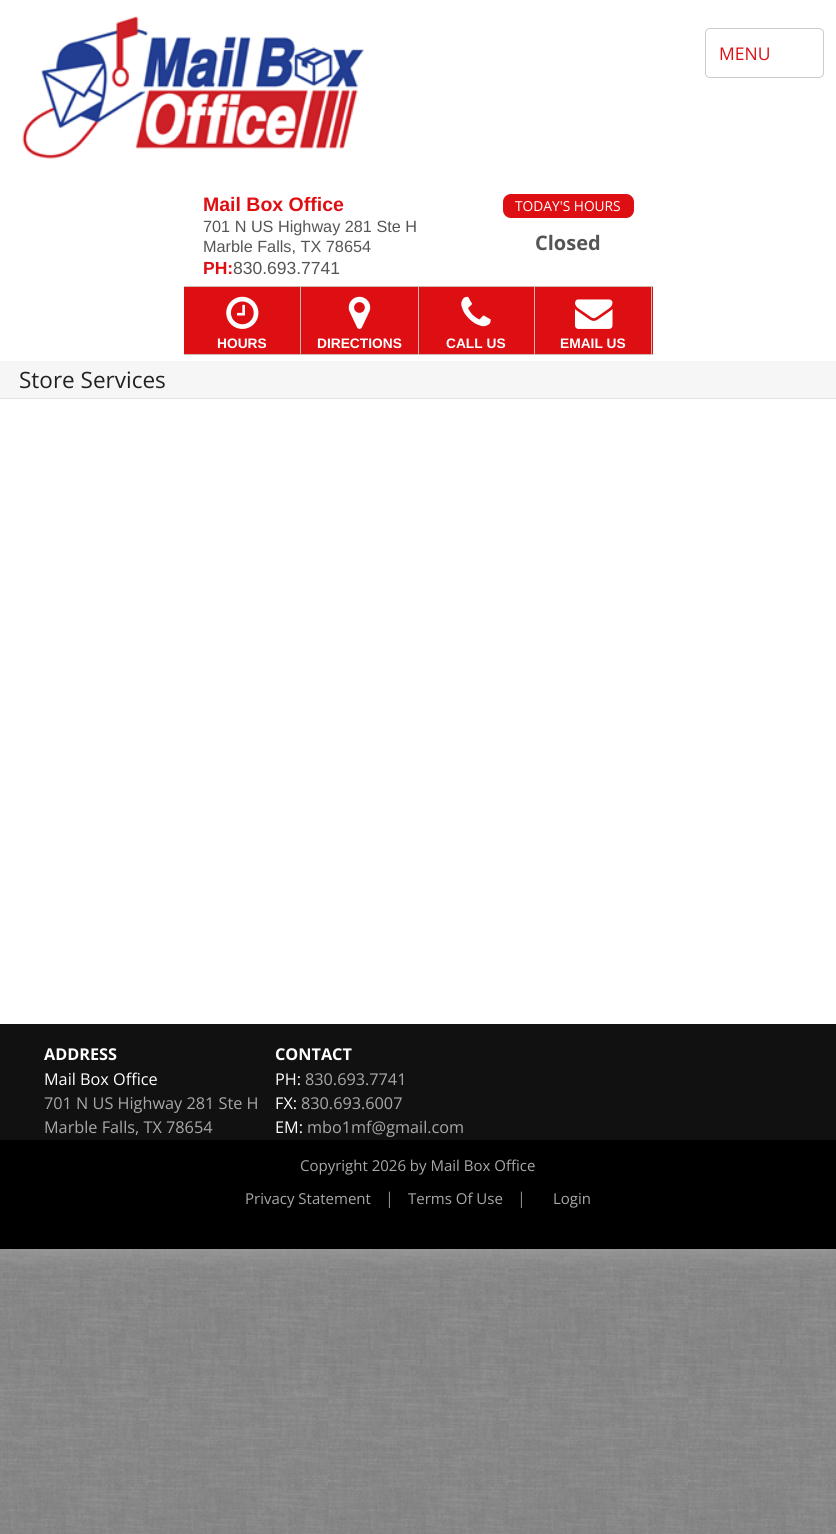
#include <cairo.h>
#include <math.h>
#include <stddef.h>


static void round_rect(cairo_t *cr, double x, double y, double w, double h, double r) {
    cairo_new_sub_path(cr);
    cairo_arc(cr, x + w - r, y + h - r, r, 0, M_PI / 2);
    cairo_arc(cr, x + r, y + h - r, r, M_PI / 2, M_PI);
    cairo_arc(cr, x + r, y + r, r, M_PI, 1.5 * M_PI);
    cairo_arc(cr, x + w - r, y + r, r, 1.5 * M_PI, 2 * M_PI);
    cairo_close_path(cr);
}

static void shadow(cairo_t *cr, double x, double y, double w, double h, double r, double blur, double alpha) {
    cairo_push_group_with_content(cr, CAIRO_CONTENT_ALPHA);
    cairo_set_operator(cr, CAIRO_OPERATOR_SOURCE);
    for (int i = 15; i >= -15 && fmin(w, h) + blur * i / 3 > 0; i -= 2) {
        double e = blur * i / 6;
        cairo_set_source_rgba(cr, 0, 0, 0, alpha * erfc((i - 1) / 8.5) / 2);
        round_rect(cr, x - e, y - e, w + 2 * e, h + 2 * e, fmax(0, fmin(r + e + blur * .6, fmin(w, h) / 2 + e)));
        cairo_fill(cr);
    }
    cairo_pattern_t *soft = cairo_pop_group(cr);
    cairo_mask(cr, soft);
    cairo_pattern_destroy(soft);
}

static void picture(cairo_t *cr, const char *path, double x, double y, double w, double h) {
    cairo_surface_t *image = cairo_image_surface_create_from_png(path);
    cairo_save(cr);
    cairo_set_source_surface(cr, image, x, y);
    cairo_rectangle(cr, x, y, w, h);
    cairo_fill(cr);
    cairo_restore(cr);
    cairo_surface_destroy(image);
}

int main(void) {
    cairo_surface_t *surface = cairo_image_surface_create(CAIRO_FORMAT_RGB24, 836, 1534);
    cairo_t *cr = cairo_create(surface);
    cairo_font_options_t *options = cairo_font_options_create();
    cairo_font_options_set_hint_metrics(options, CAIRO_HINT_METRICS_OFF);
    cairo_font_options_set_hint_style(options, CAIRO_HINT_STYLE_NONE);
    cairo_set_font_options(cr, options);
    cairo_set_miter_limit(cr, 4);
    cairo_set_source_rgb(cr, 1, 1, 1);
    cairo_paint(cr);
    picture(cr, "img1.png", 0, 1249, 836, 285);
    cairo_set_source_rgb(cr, 0.639, 0.639, 0.639);
    shadow(cr, 0, 0, 836, 1249, 0, 12.5, 1);
    cairo_set_source_rgb(cr, 1, 1, 1);
    cairo_rectangle(cr, 0, 0, 836, 1024);
    cairo_fill(cr);
    picture(cr, "img2.png", 22, 16, 342, 143);
    round_rect(cr, 705.5, 28.5, 118, 49, 4.5);
    cairo_set_source_rgb(cr, 0.8, 0.8, 0.8);
    cairo_set_line_width(cr, 1);
    cairo_stroke(cr);
    cairo_select_font_face(cr, "Open Sans", CAIRO_FONT_SLANT_NORMAL, CAIRO_FONT_WEIGHT_NORMAL);
    cairo_set_font_size(cr, 17.5);
    cairo_set_source_rgb(cr, 0.867, 0.059, 0.078);
    cairo_move_to(cr, 719, 60);
    cairo_show_text(cr, "MENU");
    cairo_select_font_face(cr, "Liberation Sans", CAIRO_FONT_SLANT_NORMAL, CAIRO_FONT_WEIGHT_BOLD);
    cairo_set_font_size(cr, 19.5);
    cairo_move_to(cr, 203, 211);
    cairo_show_text(cr, "Mail Box Office");
    cairo_select_font_face(cr, "Liberation Sans", CAIRO_FONT_SLANT_NORMAL, CAIRO_FONT_WEIGHT_NORMAL);
    cairo_set_font_size(cr, 16.25);
    cairo_set_source_rgb(cr, 0.333, 0.333, 0.333);
    cairo_move_to(cr, 203, 232);
    cairo_show_text(cr, "701 N US Highway 281 Ste H");
    cairo_move_to(cr, 203, 252);
    cairo_show_text(cr, "Marble Falls, TX 78654");
    cairo_select_font_face(cr, "Liberation Sans", CAIRO_FONT_SLANT_NORMAL, CAIRO_FONT_WEIGHT_BOLD);
    cairo_set_font_size(cr, 17.5);
    cairo_set_source_rgb(cr, 0.867, 0.059, 0.078);
    cairo_move_to(cr, 203, 274);
    cairo_show_text(cr, "PH:");
    cairo_select_font_face(cr, "Liberation Sans", CAIRO_FONT_SLANT_NORMAL, CAIRO_FONT_WEIGHT_NORMAL);
    cairo_set_source_rgb(cr, 0.333, 0.333, 0.333);
    cairo_move_to(cr, 233, 274);
    cairo_show_text(cr, "830.693.7741");
    cairo_set_source_rgb(cr, 0.867, 0.059, 0.078);
    round_rect(cr, 503, 194, 131, 24, 8);
    cairo_fill(cr);
    cairo_select_font_face(cr, "Open Sans", CAIRO_FONT_SLANT_NORMAL, CAIRO_FONT_WEIGHT_NORMAL);
    cairo_set_font_size(cr, 13.75);
    cairo_set_source_rgb(cr, 1, 1, 1);
    cairo_move_to(cr, 515, 211);
    cairo_show_text(cr, "TODAY'S HOURS");
    cairo_select_font_face(cr, "Open Sans", CAIRO_FONT_SLANT_NORMAL, CAIRO_FONT_WEIGHT_BOLD);
    cairo_set_font_size(cr, 20);
    cairo_set_source_rgb(cr, 0.333, 0.333, 0.333);
    cairo_move_to(cr, 535, 250);
    cairo_show_text(cr, "Closed");
    cairo_set_source_rgb(cr, 0.867, 0.059, 0.078);
    cairo_rectangle(cr, 184, 287, 116, 67);
    cairo_fill(cr);
    cairo_set_source_rgb(cr, 0.816, 0.722, 0.706);
    cairo_rectangle(cr, 184, 286, 469, 1);
    cairo_fill(cr);
    cairo_rectangle(cr, 300, 286, 1, 69);
    cairo_fill(cr);
    cairo_rectangle(cr, 184, 354, 117, 1);
    cairo_fill(cr);
    picture(cr, "img3.png", 226, 296, 33, 33);
    cairo_select_font_face(cr, "Liberation Sans", CAIRO_FONT_SLANT_NORMAL, CAIRO_FONT_WEIGHT_BOLD);
    cairo_set_font_size(cr, 13.75);
    cairo_set_source_rgb(cr, 1, 1, 1);
    cairo_move_to(cr, 217, 348);
    cairo_show_text(cr, "HOURS");
    cairo_set_source_rgb(cr, 0.867, 0.059, 0.078);
    cairo_rectangle(cr, 301, 287, 117, 67);
    cairo_fill(cr);
    cairo_set_source_rgb(cr, 0.816, 0.722, 0.706);
    cairo_rectangle(cr, 418, 286, 1, 69);
    cairo_fill(cr);
    cairo_rectangle(cr, 301, 354, 118, 1);
    cairo_fill(cr);
    picture(cr, "img4.png", 348, 296, 23, 33);
    cairo_set_source_rgb(cr, 1, 1, 1);
    cairo_move_to(cr, 317, 348);
    cairo_show_text(cr, "DIRECTIONS");
    cairo_set_source_rgb(cr, 0.867, 0.059, 0.078);
    cairo_rectangle(cr, 419, 287, 115, 67);
    cairo_fill(cr);
    cairo_set_source_rgb(cr, 0.816, 0.722, 0.706);
    cairo_rectangle(cr, 534, 286, 1, 69);
    cairo_fill(cr);
    cairo_rectangle(cr, 419, 354, 116, 1);
    cairo_fill(cr);
    picture(cr, "img5.png", 461, 296, 30, 31);
    cairo_set_source_rgb(cr, 1, 1, 1);
    cairo_move_to(cr, 446, 348);
    cairo_show_text(cr, "CALL US");
    cairo_set_source_rgb(cr, 0.867, 0.059, 0.078);
    cairo_rectangle(cr, 535, 287, 118, 67);
    cairo_fill(cr);
    cairo_set_source_rgb(cr, 0.816, 0.722, 0.706);
    cairo_rectangle(cr, 651, 286, 1, 69);
    cairo_fill(cr);
    cairo_rectangle(cr, 535, 354, 118, 1);
    cairo_fill(cr);
    picture(cr, "img6.png", 575, 299, 38, 30);
    cairo_set_source_rgb(cr, 1, 1, 1);
    cairo_move_to(cr, 560, 348);
    cairo_show_text(cr, "EMAIL US");
    cairo_set_source_rgb(cr, 0.961, 0.961, 0.961);
    cairo_rectangle(cr, 0, 361, 836, 37);
    cairo_fill(cr);
    cairo_set_source_rgb(cr, 0.89, 0.89, 0.89);
    cairo_rectangle(cr, 0, 398, 836, 1);
    cairo_fill(cr);
    cairo_select_font_face(cr, "Open Sans", CAIRO_FONT_SLANT_NORMAL, CAIRO_FONT_WEIGHT_NORMAL);
    cairo_set_font_size(cr, 22.5);
    cairo_set_source_rgb(cr, 0.133, 0.133, 0.133);
    cairo_move_to(cr, 19, 388);
    cairo_show_text(cr, "Store Services");
    cairo_set_source_rgb(cr, 0.067, 0.067, 0.067);
    cairo_rectangle(cr, 0, 1024, 836, 116);
    cairo_fill(cr);
    cairo_select_font_face(cr, "Open Sans", CAIRO_FONT_SLANT_NORMAL, CAIRO_FONT_WEIGHT_BOLD);
    cairo_set_font_size(cr, 16.25);
    cairo_set_source_rgb(cr, 1, 1, 1);
    cairo_move_to(cr, 44, 1060);
    cairo_show_text(cr, "ADDRESS");
    cairo_select_font_face(cr, "Open Sans", CAIRO_FONT_SLANT_NORMAL, CAIRO_FONT_WEIGHT_NORMAL);
    cairo_move_to(cr, 44, 1085);
    cairo_show_text(cr, "Mail Box Office");
    cairo_set_source_rgb(cr, 0.659, 0.659, 0.659);
    cairo_move_to(cr, 44, 1109);
    cairo_show_text(cr, "701 N US Highway 281 Ste H");
    cairo_move_to(cr, 44, 1133);
    cairo_show_text(cr, "Marble Falls, TX 78654");
    cairo_select_font_face(cr, "Open Sans", CAIRO_FONT_SLANT_NORMAL, CAIRO_FONT_WEIGHT_BOLD);
    cairo_set_source_rgb(cr, 1, 1, 1);
    cairo_move_to(cr, 275, 1060);
    cairo_show_text(cr, "CONTACT");
    cairo_select_font_face(cr, "Open Sans", CAIRO_FONT_SLANT_NORMAL, CAIRO_FONT_WEIGHT_NORMAL);
    cairo_move_to(cr, 275, 1085);
    cairo_show_text(cr, "PH:");
    cairo_set_source_rgb(cr, 0.659, 0.659, 0.659);
    cairo_move_to(cr, 305, 1085);
    cairo_show_text(cr, "830.693.7741");
    cairo_set_source_rgb(cr, 1, 1, 1);
    cairo_move_to(cr, 275, 1109);
    cairo_show_text(cr, "FX:");
    cairo_set_source_rgb(cr, 0.659, 0.659, 0.659);
    cairo_move_to(cr, 301, 1109);
    cairo_show_text(cr, "830.693.6007");
    cairo_set_source_rgb(cr, 1, 1, 1);
    cairo_move_to(cr, 275, 1133);
    cairo_show_text(cr, "EM:");
    cairo_set_source_rgb(cr, 0.659, 0.659, 0.659);
    cairo_move_to(cr, 307, 1133);
    cairo_show_text(cr, "mbo1mf@gmail.com");
    cairo_set_source_rgb(cr, 0, 0, 0);
    cairo_rectangle(cr, 0, 1140, 836, 109);
    cairo_fill(cr);
    cairo_set_font_size(cr, 15);
    cairo_set_source_rgb(cr, 0.659, 0.659, 0.659);
    cairo_move_to(cr, 300, 1171);
    cairo_show_text(cr, "Copyright 2026 by Mail Box Office");
    cairo_move_to(cr, 245, 1204);
    cairo_show_text(cr, "Privacy Statement");
    cairo_set_font_size(cr, 16.25);
    cairo_set_source_rgb(cr, 0.541, 0.541, 0.541);
    cairo_move_to(cr, 385, 1204);
    cairo_show_text(cr, "|");
    cairo_set_font_size(cr, 15);
    cairo_set_source_rgb(cr, 0.659, 0.659, 0.659);
    cairo_move_to(cr, 408, 1204);
    cairo_show_text(cr, "Terms Of Use");
    cairo_set_font_size(cr, 16.25);
    cairo_set_source_rgb(cr, 0.541, 0.541, 0.541);
    cairo_move_to(cr, 517, 1204);
    cairo_show_text(cr, "|");
    cairo_set_font_size(cr, 15);
    cairo_set_source_rgb(cr, 0.659, 0.659, 0.659);
    cairo_move_to(cr, 553, 1204);
    cairo_show_text(cr, "Login");
    cairo_surface_write_to_png(surface, "page.png");
    cairo_font_options_destroy(options);
    cairo_destroy(cr);
    cairo_surface_destroy(surface);
    return 0;
}
